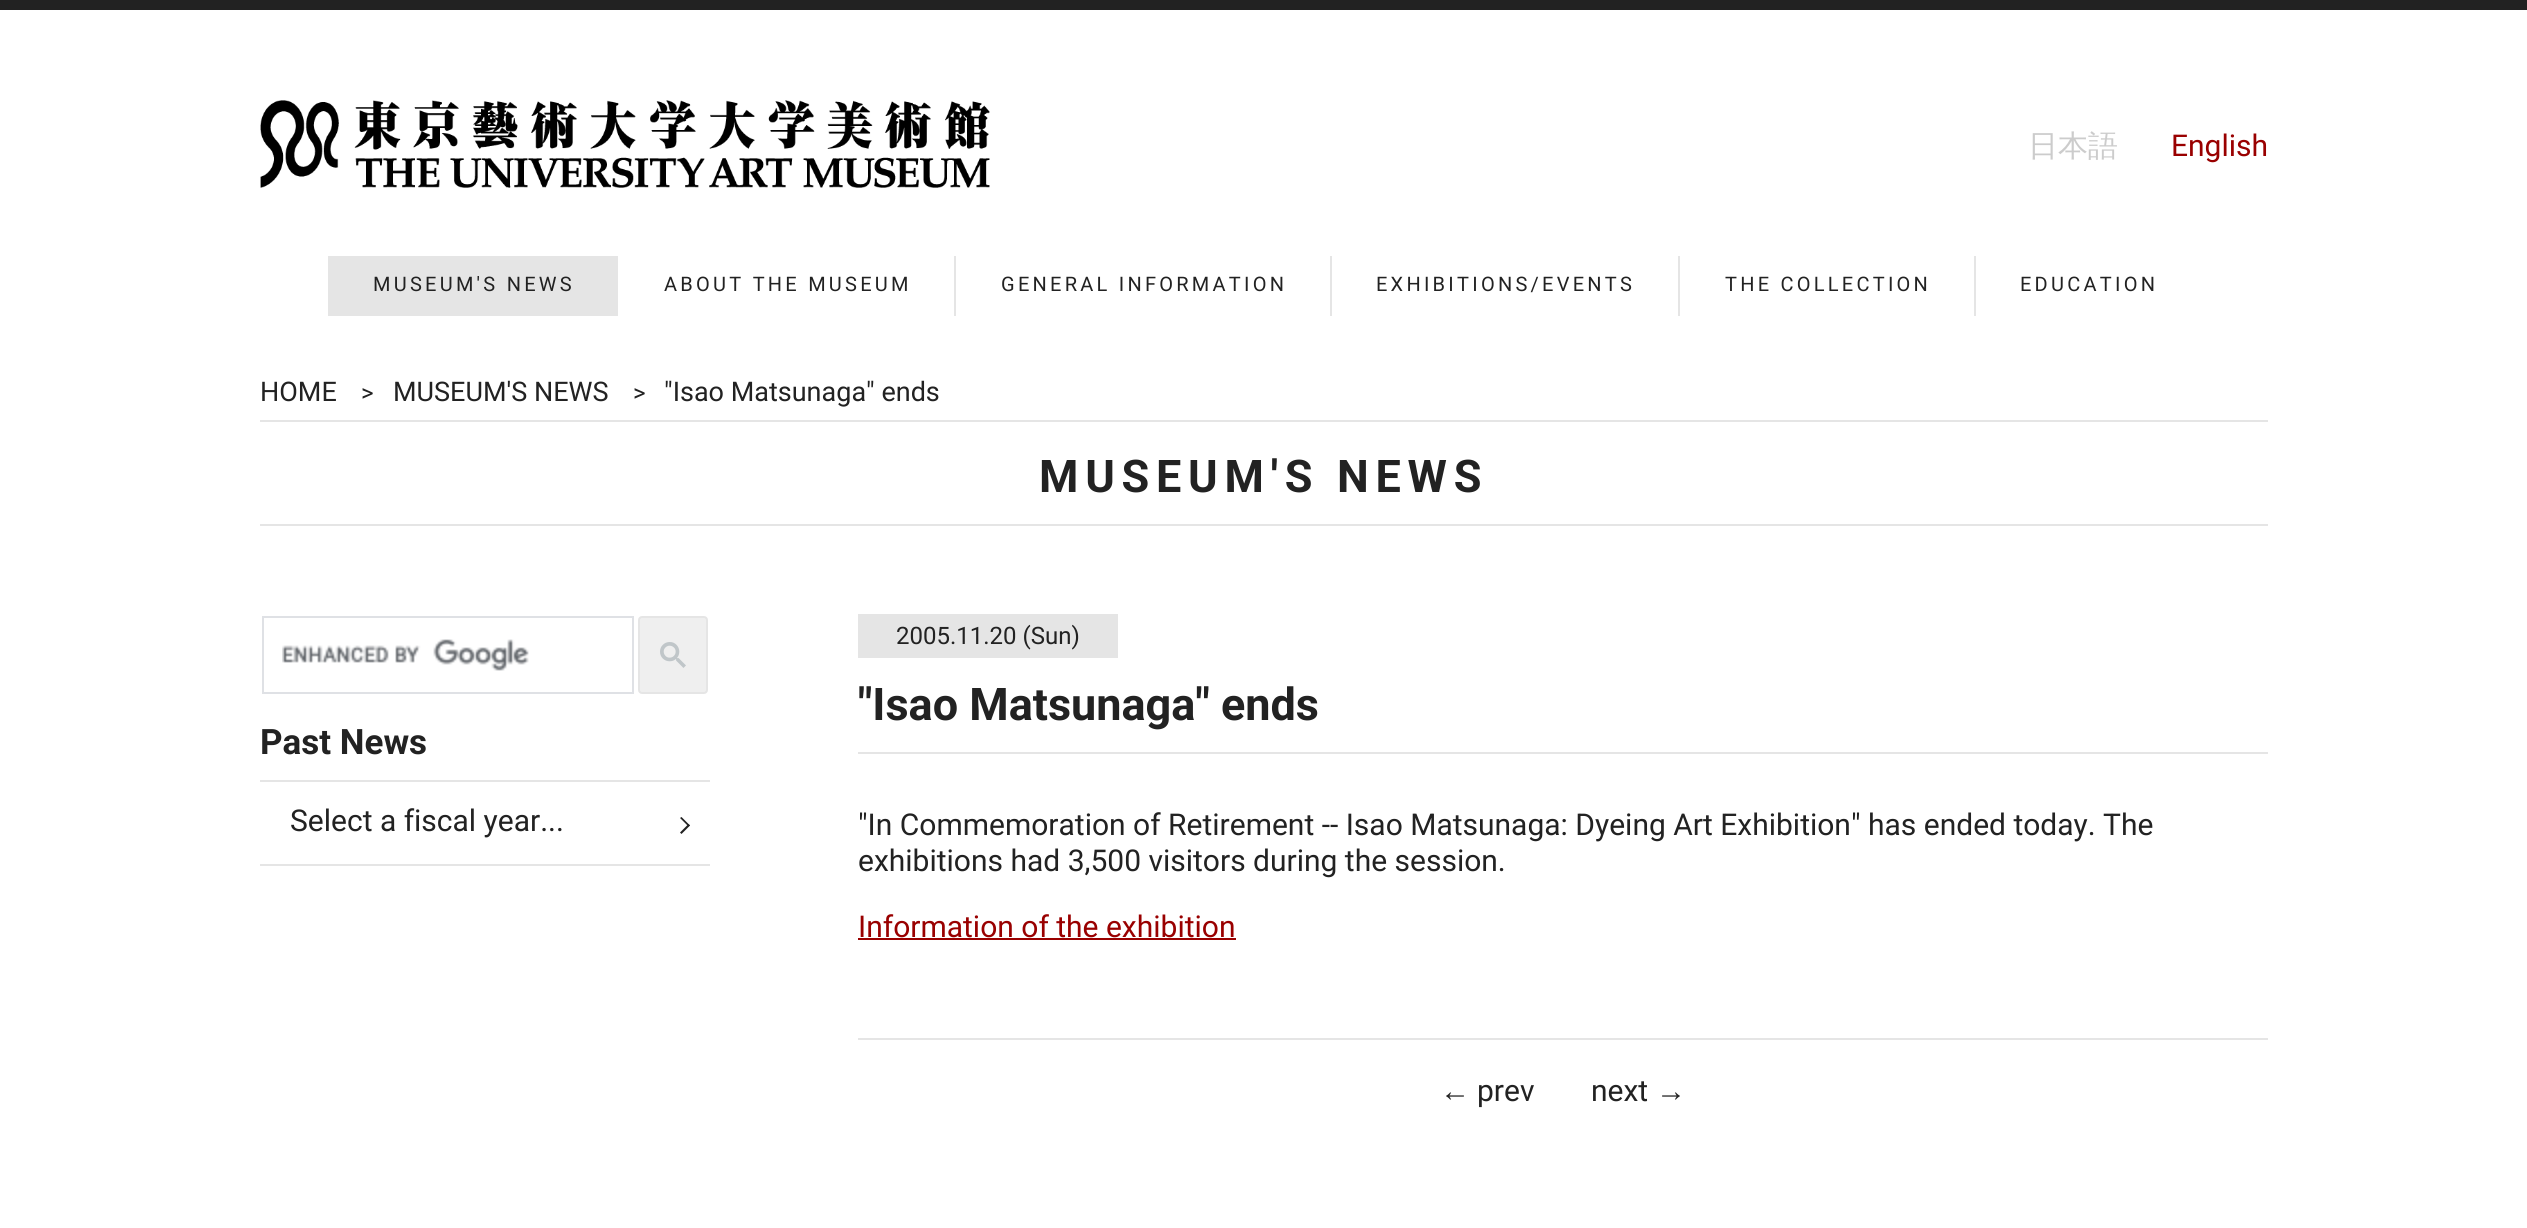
#include <cairo.h>
#include <math.h>
#include <stddef.h>


static void spaced_text(cairo_t *cr, double x, double y, const char *s, double letter, double word) {
    cairo_move_to(cr, x, y);
    while (*s) {
        char ch[5] = {0};
        int n = 0;
        do ch[n++] = *s++; while ((*s & 0xC0) == 0x80);
        cairo_show_text(cr, ch);
        cairo_rel_move_to(cr, letter + word * (*ch == ' '), 0);
    }
}

static void round_rect(cairo_t *cr, double x, double y, double w, double h, double r) {
    cairo_new_sub_path(cr);
    cairo_arc(cr, x + w - r, y + h - r, r, 0, M_PI / 2);
    cairo_arc(cr, x + r, y + h - r, r, M_PI / 2, M_PI);
    cairo_arc(cr, x + r, y + r, r, M_PI, 1.5 * M_PI);
    cairo_arc(cr, x + w - r, y + r, r, 1.5 * M_PI, 2 * M_PI);
    cairo_close_path(cr);
}

static void picture(cairo_t *cr, const char *path, double x, double y, double w, double h) {
    cairo_surface_t *image = cairo_image_surface_create_from_png(path);
    cairo_save(cr);
    cairo_set_source_surface(cr, image, x, y);
    cairo_rectangle(cr, x, y, w, h);
    cairo_fill(cr);
    cairo_restore(cr);
    cairo_surface_destroy(image);
}

int main(void) {
    cairo_surface_t *surface = cairo_image_surface_create(CAIRO_FORMAT_RGB24, 2527, 1228);
    cairo_t *cr = cairo_create(surface);
    cairo_font_options_t *options = cairo_font_options_create();
    cairo_font_options_set_hint_metrics(options, CAIRO_HINT_METRICS_OFF);
    cairo_font_options_set_hint_style(options, CAIRO_HINT_STYLE_NONE);
    cairo_set_font_options(cr, options);
    cairo_set_miter_limit(cr, 4);
    cairo_set_source_rgb(cr, 1, 1, 1);
    cairo_paint(cr);
    cairo_set_source_rgb(cr, 0.133, 0.133, 0.133);
    cairo_rectangle(cr, 0, 0, 2527, 10);
    cairo_fill(cr);
    picture(cr, "img1.png", 260, 100, 730, 88);
    cairo_select_font_face(cr, "WenQuanYi Zen Hei Medium", CAIRO_FONT_SLANT_NORMAL, CAIRO_FONT_WEIGHT_NORMAL);
    cairo_set_font_size(cr, 30);
    cairo_set_source_rgb(cr, 0.8, 0.8, 0.8);
    cairo_move_to(cr, 2028, 156);
    cairo_show_text(cr, "日本語");
    cairo_select_font_face(cr, "Roboto", CAIRO_FONT_SLANT_NORMAL, CAIRO_FONT_WEIGHT_NORMAL);
    cairo_set_source_rgb(cr, 0.6, 0, 0);
    cairo_move_to(cr, 2171, 156);
    cairo_show_text(cr, "English");
    cairo_set_source_rgb(cr, 0.898, 0.898, 0.898);
    cairo_rectangle(cr, 328, 256, 290, 60);
    cairo_fill(cr);
    cairo_set_font_size(cr, 20);
    cairo_set_source_rgb(cr, 0.133, 0.133, 0.133);
    spaced_text(cr, 373, 291, "MUSEUM'S NEWS", 3.25, 0);
    spaced_text(cr, 664, 291, "ABOUT THE MUSEUM", 3.25, 0);
    cairo_set_source_rgb(cr, 0.898, 0.898, 0.898);
    cairo_rectangle(cr, 954, 256, 2, 60);
    cairo_fill(cr);
    cairo_set_source_rgb(cr, 0.133, 0.133, 0.133);
    spaced_text(cr, 1001, 291, "GENERAL INFORMATION", 3.25, 0);
    cairo_set_source_rgb(cr, 0.898, 0.898, 0.898);
    cairo_rectangle(cr, 1330, 256, 2, 60);
    cairo_fill(cr);
    cairo_set_source_rgb(cr, 0.133, 0.133, 0.133);
    spaced_text(cr, 1376, 291, "EXHIBITIONS/EVENTS", 3.25, 0);
    cairo_set_source_rgb(cr, 0.898, 0.898, 0.898);
    cairo_rectangle(cr, 1678, 256, 2, 60);
    cairo_fill(cr);
    cairo_set_source_rgb(cr, 0.133, 0.133, 0.133);
    spaced_text(cr, 1725, 291, "THE COLLECTION", 3.25, 0);
    cairo_set_source_rgb(cr, 0.898, 0.898, 0.898);
    cairo_rectangle(cr, 1974, 256, 2, 60);
    cairo_fill(cr);
    cairo_set_source_rgb(cr, 0.133, 0.133, 0.133);
    spaced_text(cr, 2020, 291, "EDUCATION", 3.25, 0);
    cairo_set_source_rgb(cr, 0.898, 0.898, 0.898);
    cairo_rectangle(cr, 260, 420, 2008, 2);
    cairo_fill(cr);
    cairo_set_font_size(cr, 27);
    cairo_set_source_rgb(cr, 0.133, 0.133, 0.133);
    cairo_move_to(cr, 260, 401);
    cairo_show_text(cr, "HOME");
    cairo_set_font_size(cr, 24);
    cairo_move_to(cr, 361, 401);
    cairo_show_text(cr, ">");
    cairo_set_font_size(cr, 27);
    cairo_move_to(cr, 393, 401);
    cairo_show_text(cr, "MUSEUM'S NEWS");
    cairo_set_font_size(cr, 24);
    cairo_move_to(cr, 633, 401);
    cairo_show_text(cr, ">");
    cairo_set_font_size(cr, 27);
    cairo_move_to(cr, 664, 401);
    cairo_show_text(cr, "\"Isao Matsunaga\" ends");
    cairo_set_source_rgb(cr, 0.898, 0.898, 0.898);
    cairo_rectangle(cr, 260, 524, 2008, 2);
    cairo_fill(cr);
    cairo_select_font_face(cr, "Roboto", CAIRO_FONT_SLANT_NORMAL, CAIRO_FONT_WEIGHT_BOLD);
    cairo_set_font_size(cr, 45);
    cairo_set_source_rgb(cr, 0.133, 0.133, 0.133);
    spaced_text(cr, 1039, 492, "MUSEUM'S NEWS", 6.75, 0);
    cairo_rectangle(cr, 263, 617, 370, 76);
    cairo_set_source_rgb(cr, 0.875, 0.882, 0.898);
    cairo_stroke(cr);
    picture(cr, "img2.png", 282, 639, 247, 32);
    cairo_set_source_rgb(cr, 0.937, 0.937, 0.937);
    round_rect(cr, 639, 617, 68, 76, 3);
    cairo_fill_preserve(cr);
    cairo_set_source_rgb(cr, 0.898, 0.898, 0.898);
    cairo_stroke(cr);
    picture(cr, "img3.png", 660, 642, 26, 26);
    cairo_rectangle(cr, 260, 780, 450, 2);
    cairo_fill(cr);
    cairo_set_font_size(cr, 35);
    cairo_set_source_rgb(cr, 0.133, 0.133, 0.133);
    cairo_move_to(cr, 260, 754);
    cairo_show_text(cr, "Past News");
    cairo_set_source_rgb(cr, 0.898, 0.898, 0.898);
    cairo_rectangle(cr, 260, 864, 450, 2);
    cairo_fill(cr);
    cairo_select_font_face(cr, "Roboto", CAIRO_FONT_SLANT_NORMAL, CAIRO_FONT_WEIGHT_NORMAL);
    cairo_set_font_size(cr, 30);
    cairo_set_source_rgb(cr, 0.133, 0.133, 0.133);
    cairo_move_to(cr, 290, 831);
    cairo_show_text(cr, "Select a fiscal year...");
    cairo_new_path(cr);
    cairo_move_to(cr, 680, 818);
    cairo_line_to(cr, 681.5, 817);
    cairo_line_to(cr, 690, 825.5);
    cairo_line_to(cr, 688.5, 826.5);
    cairo_close_path(cr);
    cairo_fill(cr);
    cairo_new_path(cr);
    cairo_move_to(cr, 680, 832.5);
    cairo_line_to(cr, 688.5, 824);
    cairo_line_to(cr, 690, 825.5);
    cairo_line_to(cr, 681.5, 834);
    cairo_close_path(cr);
    cairo_fill(cr);
    cairo_set_source_rgb(cr, 0.898, 0.898, 0.898);
    cairo_rectangle(cr, 858, 614, 260, 44);
    cairo_fill(cr);
    cairo_set_font_size(cr, 24);
    cairo_set_source_rgb(cr, 0.133, 0.133, 0.133);
    cairo_move_to(cr, 896, 644);
    cairo_show_text(cr, "2005.11.20 (Sun)");
    cairo_set_source_rgb(cr, 0.898, 0.898, 0.898);
    cairo_rectangle(cr, 858, 752, 1410, 2);
    cairo_fill(cr);
    cairo_select_font_face(cr, "Roboto", CAIRO_FONT_SLANT_NORMAL, CAIRO_FONT_WEIGHT_BOLD);
    cairo_set_font_size(cr, 45);
    cairo_set_source_rgb(cr, 0.133, 0.133, 0.133);
    cairo_move_to(cr, 858, 720);
    cairo_show_text(cr, "\"Isao Matsunaga\" ends");
    cairo_select_font_face(cr, "Roboto", CAIRO_FONT_SLANT_NORMAL, CAIRO_FONT_WEIGHT_NORMAL);
    cairo_set_font_size(cr, 30);
    cairo_move_to(cr, 858, 835);
    cairo_show_text(cr, "\"In Commemoration of Retirement -- Isao Matsunaga: Dyeing Art Exhibition\" has ended today. The");
    cairo_move_to(cr, 858, 871);
    cairo_show_text(cr, "exhibitions had 3,500 visitors during the session.");
    cairo_set_source_rgb(cr, 0.6, 0, 0);
    cairo_move_to(cr, 858, 937);
    cairo_show_text(cr, "Information of the exhibition");
    cairo_rectangle(cr, 858, 938, 378, 2);
    cairo_fill(cr);
    cairo_set_source_rgb(cr, 0.898, 0.898, 0.898);
    cairo_rectangle(cr, 858, 1038, 1410, 2);
    cairo_fill(cr);
    cairo_select_font_face(cr, "Liberation Sans", CAIRO_FONT_SLANT_NORMAL, CAIRO_FONT_WEIGHT_NORMAL);
    cairo_set_source_rgb(cr, 0.133, 0.133, 0.133);
    cairo_move_to(cr, 1440, 1101);
    cairo_show_text(cr, "←");
    cairo_select_font_face(cr, "Roboto", CAIRO_FONT_SLANT_NORMAL, CAIRO_FONT_WEIGHT_NORMAL);
    cairo_move_to(cr, 1477, 1101);
    cairo_show_text(cr, "prev");
    cairo_move_to(cr, 1591, 1101);
    cairo_show_text(cr, "next");
    cairo_select_font_face(cr, "Liberation Sans", CAIRO_FONT_SLANT_NORMAL, CAIRO_FONT_WEIGHT_NORMAL);
    cairo_move_to(cr, 1656, 1101);
    cairo_show_text(cr, "→");
    cairo_surface_write_to_png(surface, "page.png");
    cairo_font_options_destroy(options);
    cairo_destroy(cr);
    cairo_surface_destroy(surface);
    return 0;
}
